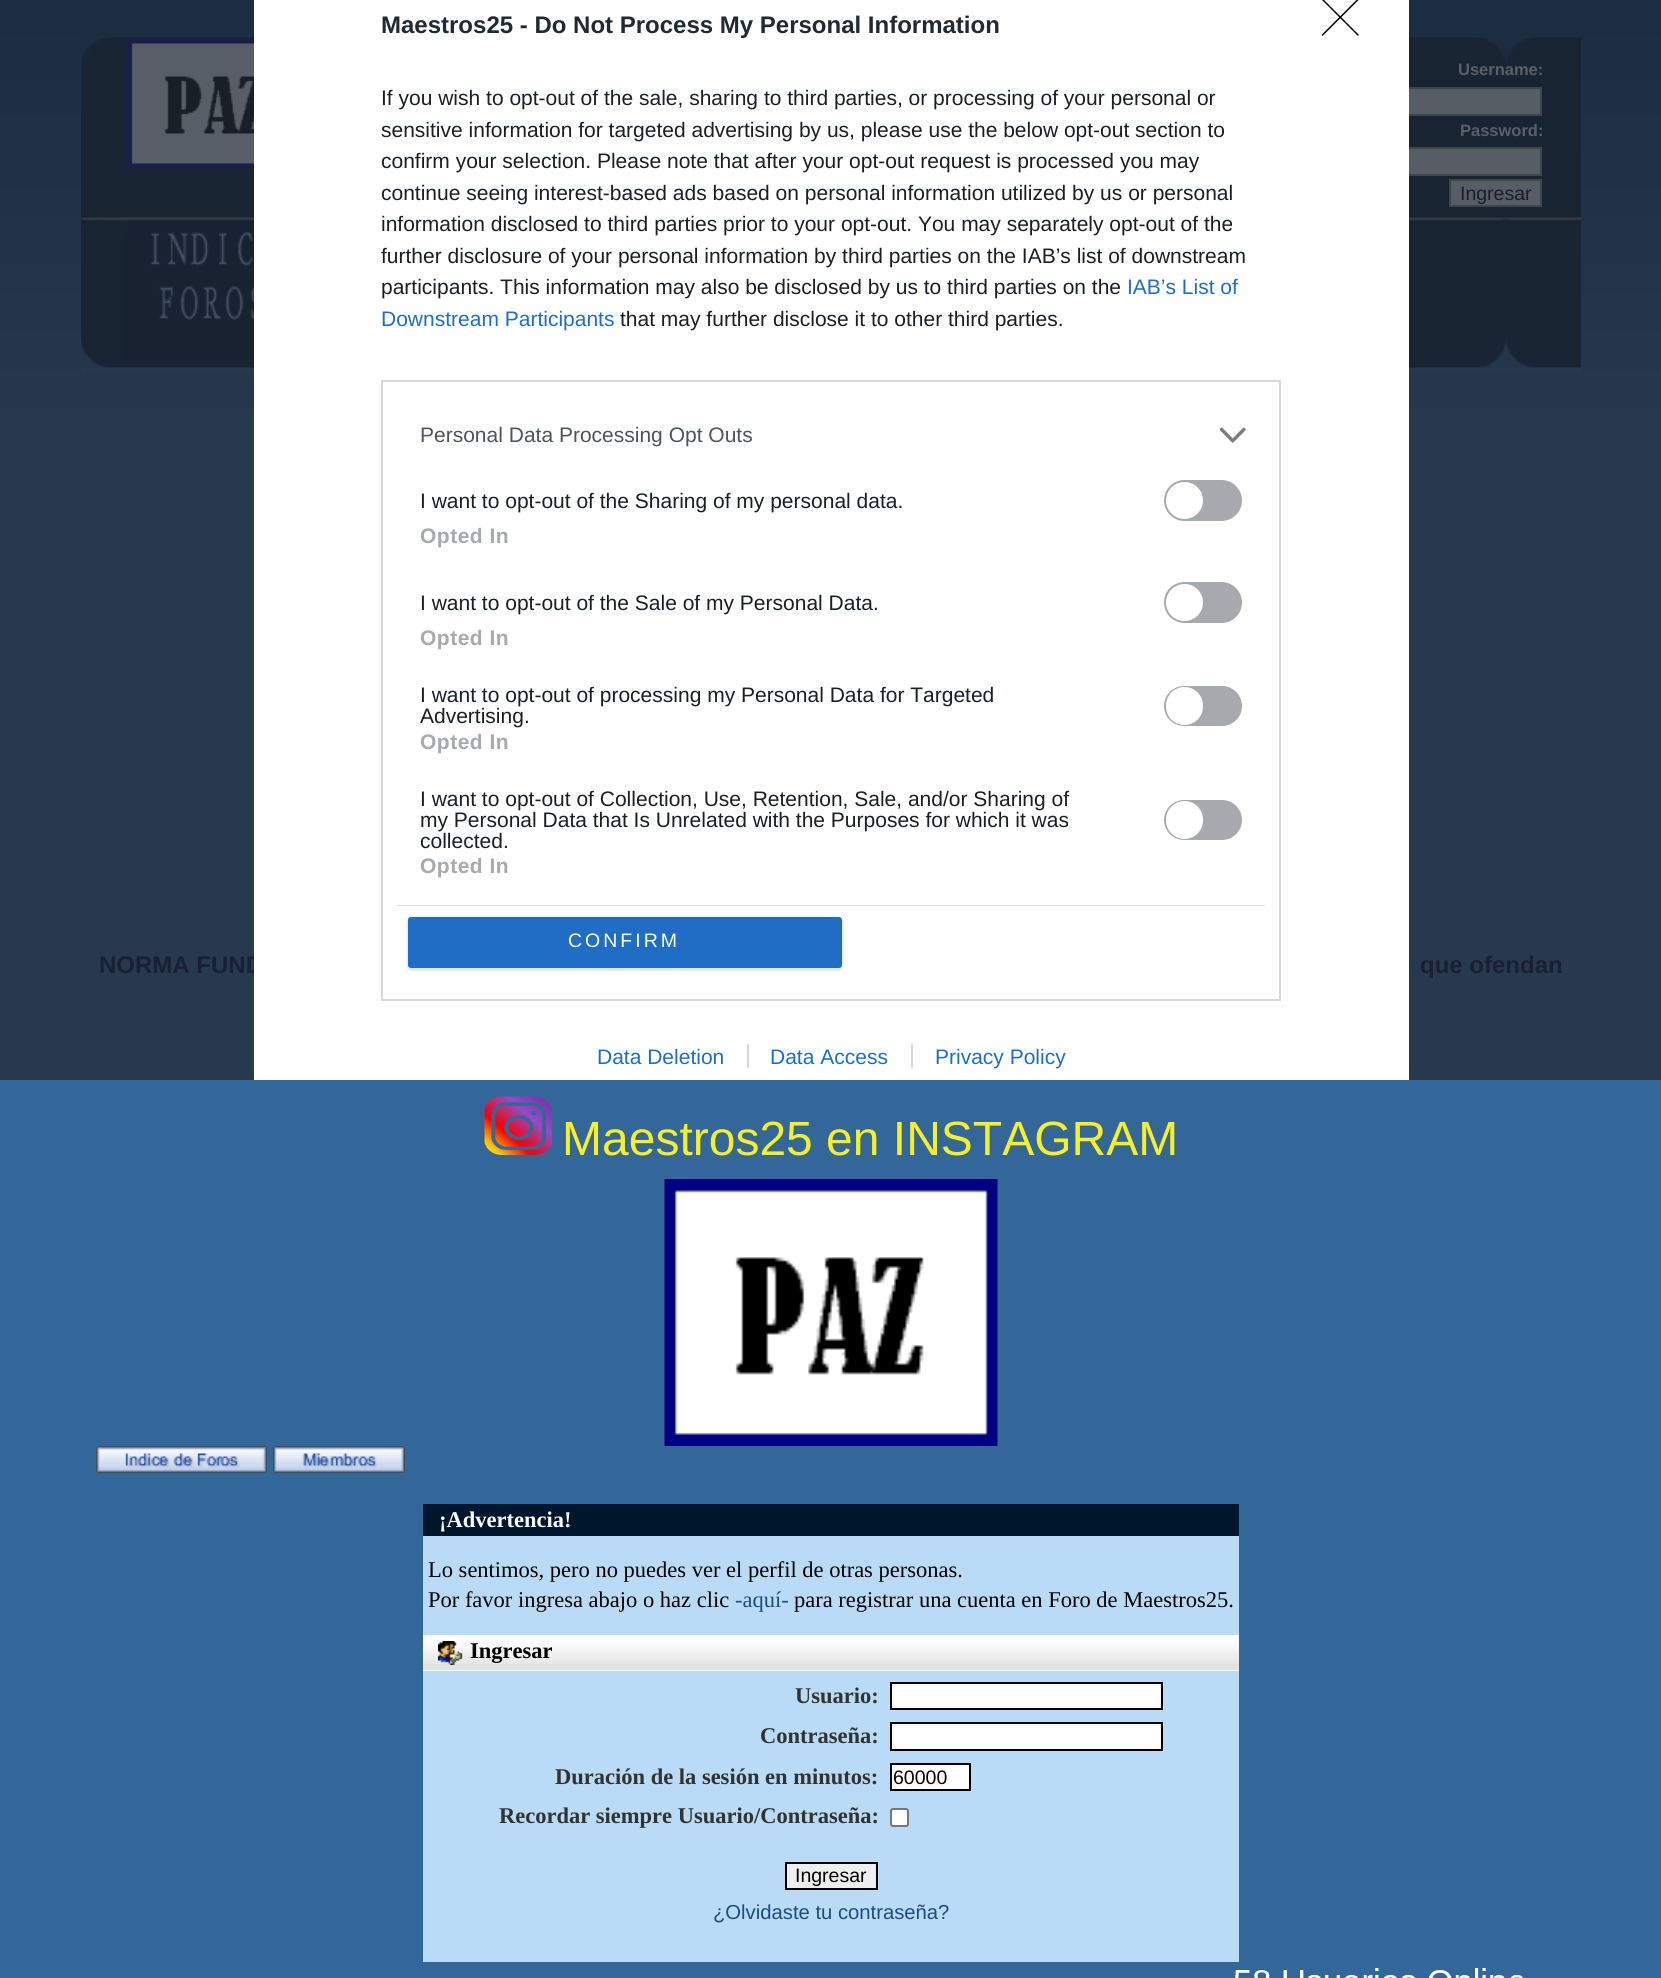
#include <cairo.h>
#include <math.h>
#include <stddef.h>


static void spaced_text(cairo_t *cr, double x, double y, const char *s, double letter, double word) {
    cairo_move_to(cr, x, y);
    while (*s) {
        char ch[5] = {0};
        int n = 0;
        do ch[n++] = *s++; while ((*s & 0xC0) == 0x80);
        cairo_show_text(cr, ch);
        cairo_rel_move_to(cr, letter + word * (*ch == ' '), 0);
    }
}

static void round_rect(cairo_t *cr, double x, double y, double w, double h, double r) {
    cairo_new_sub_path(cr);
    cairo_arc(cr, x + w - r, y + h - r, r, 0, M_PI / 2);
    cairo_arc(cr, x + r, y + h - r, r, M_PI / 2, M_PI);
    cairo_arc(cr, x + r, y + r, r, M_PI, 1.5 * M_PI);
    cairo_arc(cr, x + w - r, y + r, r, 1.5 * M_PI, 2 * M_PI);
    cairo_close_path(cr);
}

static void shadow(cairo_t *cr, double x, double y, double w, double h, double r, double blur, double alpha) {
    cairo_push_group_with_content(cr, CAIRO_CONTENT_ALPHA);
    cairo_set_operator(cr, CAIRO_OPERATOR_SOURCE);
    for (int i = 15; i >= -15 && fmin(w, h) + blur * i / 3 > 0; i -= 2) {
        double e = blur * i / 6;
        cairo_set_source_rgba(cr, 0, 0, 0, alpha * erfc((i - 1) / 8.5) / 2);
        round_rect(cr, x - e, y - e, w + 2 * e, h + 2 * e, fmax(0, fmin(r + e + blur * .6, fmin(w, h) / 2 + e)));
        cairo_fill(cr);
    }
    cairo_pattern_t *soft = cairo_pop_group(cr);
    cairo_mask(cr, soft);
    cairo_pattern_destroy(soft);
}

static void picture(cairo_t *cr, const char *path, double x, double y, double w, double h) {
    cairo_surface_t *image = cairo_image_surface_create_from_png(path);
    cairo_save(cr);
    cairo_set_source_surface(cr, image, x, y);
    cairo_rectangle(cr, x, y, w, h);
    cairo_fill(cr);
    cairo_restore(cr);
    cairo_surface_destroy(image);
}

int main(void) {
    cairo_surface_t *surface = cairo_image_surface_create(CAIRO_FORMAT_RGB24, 1661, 1978);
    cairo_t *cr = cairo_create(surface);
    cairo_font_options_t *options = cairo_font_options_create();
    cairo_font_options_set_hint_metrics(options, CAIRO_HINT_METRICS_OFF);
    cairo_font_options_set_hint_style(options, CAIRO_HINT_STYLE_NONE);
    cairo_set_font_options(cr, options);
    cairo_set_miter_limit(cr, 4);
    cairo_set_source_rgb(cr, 0.2, 0.404, 0.6);
    cairo_paint(cr);
    cairo_set_source_rgb(cr, 0.149, 0.224, 0.302);
    cairo_rectangle(cr, 0, 408, 1661, 672);
    cairo_fill(cr);
    picture(cr, "img1.png", 0, 0, 1661, 408);
    picture(cr, "img5.png", 81, 217, 1500, 151);
    picture(cr, "img6.png", 126, 217, 128, 143);
    picture(cr, "img3.png", 81, 37, 1500, 181);
    cairo_set_source_rgb(cr, 0.341, 0.365, 0.396);
    cairo_rectangle(cr, 1409, 89, 131, 25);
    cairo_fill(cr);
    cairo_rectangle(cr, 1306, 88, 235, 27);
    cairo_set_source_rgb(cr, 0.247, 0.271, 0.302);
    cairo_stroke(cr);
    cairo_set_source_rgb(cr, 0.341, 0.365, 0.396);
    cairo_rectangle(cr, 1409, 149, 131, 25);
    cairo_fill(cr);
    cairo_rectangle(cr, 1306, 148, 235, 27);
    cairo_set_source_rgb(cr, 0.247, 0.271, 0.302);
    cairo_stroke(cr);
    cairo_set_source_rgb(cr, 0.149, 0.224, 0.302);
    cairo_rectangle(cr, 81, 368, 1500, 4);
    cairo_fill(cr);
    cairo_select_font_face(cr, "Liberation Sans", CAIRO_FONT_SLANT_NORMAL, CAIRO_FONT_WEIGHT_BOLD);
    cairo_set_font_size(cr, 24);
    cairo_set_source_rgb(cr, 0.098, 0.122, 0.204);
    cairo_move_to(cr, 99, 973);
    cairo_show_text(cr, "NORMA FUND");
    cairo_set_source_rgb(cr, 1, 1, 1);
    cairo_rectangle(cr, 254, 0, 1155, 1080);
    cairo_fill(cr);
    cairo_set_source_rgb(cr, 0.129, 0.161, 0.204);
    cairo_move_to(cr, 381, 33);
    cairo_show_text(cr, "Maestros25 - Do Not Process My Personal Information");
    cairo_select_font_face(cr, "Liberation Sans", CAIRO_FONT_SLANT_NORMAL, CAIRO_FONT_WEIGHT_NORMAL);
    cairo_set_font_size(cr, 21);
    cairo_set_source_rgb(cr, 0.098, 0.122, 0.153);
    cairo_move_to(cr, 381, 105);
    cairo_show_text(cr, "If you wish to opt-out of the sale, sharing to third parties, or processing of your personal or");
    cairo_move_to(cr, 381, 137);
    cairo_show_text(cr, "sensitive information for targeted advertising by us, please use the below opt-out section to");
    cairo_move_to(cr, 381, 168);
    cairo_show_text(cr, "confirm your selection. Please note that after your opt-out request is processed you may");
    cairo_move_to(cr, 381, 200);
    cairo_show_text(cr, "continue seeing interest-based ads based on personal information utilized by us or personal");
    cairo_move_to(cr, 381, 231);
    cairo_show_text(cr, "information disclosed to third parties prior to your opt-out. You may separately opt-out of the");
    cairo_move_to(cr, 381, 263);
    cairo_show_text(cr, "further disclosure of your personal information by third parties on the IAB’s list of downstream");
    cairo_move_to(cr, 381, 294);
    cairo_show_text(cr, "participants. This information may also be disclosed by us to third parties on the");
    cairo_set_source_rgb(cr, 0.125, 0.427, 0.773);
    cairo_move_to(cr, 1127, 294);
    cairo_show_text(cr, "IAB’s List of");
    cairo_move_to(cr, 381, 326);
    cairo_show_text(cr, "Downstream Participants");
    cairo_set_source_rgb(cr, 0.098, 0.122, 0.153);
    cairo_move_to(cr, 620, 326);
    cairo_show_text(cr, "that may further disclose it to other third parties.");
    cairo_rectangle(cr, 382, 381, 898, 619);
    cairo_set_source_rgb(cr, 0.847, 0.847, 0.847);
    cairo_stroke(cr);
    cairo_rectangle(cr, 398, 905, 867, 1);
    cairo_fill(cr);
    cairo_set_source_rgb(cr, 0.302, 0.329, 0.365);
    cairo_move_to(cr, 420, 442);
    cairo_show_text(cr, "Personal Data Processing Opt Outs");
    picture(cr, "img2.png", 1219, 427, 27, 16);
    cairo_set_source_rgb(cr, 0.098, 0.122, 0.153);
    cairo_move_to(cr, 420, 508);
    cairo_show_text(cr, "I want to opt-out of the Sharing of my personal data.");
    cairo_set_source_rgb(cr, 0.651, 0.663, 0.682);
    round_rect(cr, 1165, 481, 76, 39, 19.5);
    cairo_fill_preserve(cr);
    cairo_stroke(cr);
    cairo_set_source_rgb(cr, 1, 1, 1);
    cairo_arc(cr, 1184.5, 500.5, 18.5, 0, 2 * M_PI);
    cairo_fill(cr);
    cairo_select_font_face(cr, "Liberation Sans", CAIRO_FONT_SLANT_NORMAL, CAIRO_FONT_WEIGHT_BOLD);
    cairo_set_source_rgb(cr, 0.651, 0.663, 0.682);
    spaced_text(cr, 420, 543, "Opted In", 0.5, 0);
    cairo_select_font_face(cr, "Liberation Sans", CAIRO_FONT_SLANT_NORMAL, CAIRO_FONT_WEIGHT_NORMAL);
    cairo_set_source_rgb(cr, 0.098, 0.122, 0.153);
    cairo_move_to(cr, 420, 610);
    cairo_show_text(cr, "I want to opt-out of the Sale of my Personal Data.");
    cairo_set_source_rgb(cr, 0.651, 0.663, 0.682);
    round_rect(cr, 1165, 583, 76, 39, 19.5);
    cairo_fill_preserve(cr);
    cairo_stroke(cr);
    cairo_set_source_rgb(cr, 1, 1, 1);
    cairo_arc(cr, 1184.5, 602.5, 18.5, 0, 2 * M_PI);
    cairo_fill(cr);
    cairo_select_font_face(cr, "Liberation Sans", CAIRO_FONT_SLANT_NORMAL, CAIRO_FONT_WEIGHT_BOLD);
    cairo_set_source_rgb(cr, 0.651, 0.663, 0.682);
    spaced_text(cr, 420, 645, "Opted In", 0.5, 0);
    cairo_select_font_face(cr, "Liberation Sans", CAIRO_FONT_SLANT_NORMAL, CAIRO_FONT_WEIGHT_NORMAL);
    cairo_set_source_rgb(cr, 0.098, 0.122, 0.153);
    cairo_move_to(cr, 420, 702);
    cairo_show_text(cr, "I want to opt-out of processing my Personal Data for Targeted");
    cairo_move_to(cr, 420, 723);
    cairo_show_text(cr, "Advertising.");
    cairo_set_source_rgb(cr, 0.651, 0.663, 0.682);
    round_rect(cr, 1165, 687, 76, 38, 19);
    cairo_fill_preserve(cr);
    cairo_stroke(cr);
    cairo_set_source_rgb(cr, 1, 1, 1);
    round_rect(cr, 1166, 687, 37, 38, 18.5);
    cairo_fill(cr);
    cairo_select_font_face(cr, "Liberation Sans", CAIRO_FONT_SLANT_NORMAL, CAIRO_FONT_WEIGHT_BOLD);
    cairo_set_source_rgb(cr, 0.651, 0.663, 0.682);
    spaced_text(cr, 420, 749, "Opted In", 0.5, 0);
    cairo_select_font_face(cr, "Liberation Sans", CAIRO_FONT_SLANT_NORMAL, CAIRO_FONT_WEIGHT_NORMAL);
    cairo_set_source_rgb(cr, 0.098, 0.122, 0.153);
    cairo_move_to(cr, 420, 806);
    cairo_show_text(cr, "I want to opt-out of Collection, Use, Retention, Sale, and/or Sharing of");
    cairo_move_to(cr, 420, 827);
    cairo_show_text(cr, "my Personal Data that Is Unrelated with the Purposes for which it was");
    cairo_move_to(cr, 420, 848);
    cairo_show_text(cr, "collected.");
    cairo_set_source_rgb(cr, 0.651, 0.663, 0.682);
    round_rect(cr, 1165, 801, 76, 38, 19);
    cairo_fill_preserve(cr);
    cairo_stroke(cr);
    cairo_set_source_rgb(cr, 1, 1, 1);
    round_rect(cr, 1166, 801, 37, 38, 18.5);
    cairo_fill(cr);
    cairo_select_font_face(cr, "Liberation Sans", CAIRO_FONT_SLANT_NORMAL, CAIRO_FONT_WEIGHT_BOLD);
    cairo_set_source_rgb(cr, 0.651, 0.663, 0.682);
    spaced_text(cr, 420, 873, "Opted In", 0.5, 0);
    cairo_set_source_rgb(cr, 0, 0, 0);
    shadow(cr, 407, 917, 436, 54, 5, 1, 0.1);
    cairo_set_source_rgb(cr, 0.125, 0.427, 0.773);
    round_rect(cr, 408, 917, 434, 51, 3);
    cairo_fill(cr);
    cairo_select_font_face(cr, "Liberation Sans", CAIRO_FONT_SLANT_NORMAL, CAIRO_FONT_WEIGHT_NORMAL);
    cairo_set_font_size(cr, 19.5);
    cairo_set_source_rgb(cr, 1, 1, 1);
    spaced_text(cr, 568, 947, "CONFIRM", 3, 0);
    cairo_new_path(cr);
    cairo_move_to(cr, 1322.5, -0.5);
    cairo_line_to(cr, 1358, 35);
    cairo_move_to(cr, 1358, -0.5);
    cairo_line_to(cr, 1322.5, 35);
    cairo_set_source_rgb(cr, 0, 0, 0);
    cairo_set_line_width(cr, 1.5);
    cairo_set_line_cap(cr, CAIRO_LINE_CAP_ROUND);
    cairo_set_line_join(cr, CAIRO_LINE_JOIN_ROUND);
    cairo_stroke(cr);
    cairo_set_font_size(cr, 21);
    cairo_set_source_rgb(cr, 0.125, 0.427, 0.773);
    cairo_move_to(cr, 597, 1064);
    cairo_show_text(cr, "Data Deletion");
    cairo_move_to(cr, 770, 1064);
    cairo_show_text(cr, "Data Access");
    cairo_set_source_rgb(cr, 0.847, 0.847, 0.847);
    cairo_rectangle(cr, 747, 1044, 2, 24);
    cairo_fill(cr);
    cairo_set_source_rgb(cr, 0.125, 0.427, 0.773);
    cairo_move_to(cr, 935, 1064);
    cairo_show_text(cr, "Privacy Policy");
    cairo_set_source_rgb(cr, 0.847, 0.847, 0.847);
    cairo_rectangle(cr, 911, 1044, 2, 24);
    cairo_fill(cr);
    picture(cr, "img4.png", 126, 37, 128, 133);
    cairo_select_font_face(cr, "Liberation Sans", CAIRO_FONT_SLANT_NORMAL, CAIRO_FONT_WEIGHT_BOLD);
    cairo_set_font_size(cr, 16.5);
    cairo_set_source_rgb(cr, 0.349, 0.373, 0.404);
    cairo_move_to(cr, 1458, 75);
    cairo_show_text(cr, "Username:");
    cairo_move_to(cr, 1460, 136);
    cairo_show_text(cr, "Password:");
    cairo_set_source_rgb(cr, 0.341, 0.365, 0.396);
    cairo_rectangle(cr, 1450, 180, 91, 26);
    cairo_fill_preserve(cr);
    cairo_set_source_rgb(cr, 0.247, 0.271, 0.302);
    cairo_set_line_width(cr, 2);
    cairo_set_line_cap(cr, CAIRO_LINE_CAP_BUTT);
    cairo_set_line_join(cr, CAIRO_LINE_JOIN_MITER);
    cairo_stroke(cr);
    cairo_select_font_face(cr, "Liberation Sans", CAIRO_FONT_SLANT_NORMAL, CAIRO_FONT_WEIGHT_NORMAL);
    cairo_set_font_size(cr, 19.5);
    cairo_set_source_rgb(cr, 0.098, 0.122, 0.153);
    cairo_move_to(cr, 1460, 200);
    cairo_show_text(cr, "Ingresar");
    cairo_select_font_face(cr, "Liberation Sans", CAIRO_FONT_SLANT_NORMAL, CAIRO_FONT_WEIGHT_BOLD);
    cairo_set_font_size(cr, 24);
    cairo_set_source_rgb(cr, 0.098, 0.122, 0.204);
    cairo_move_to(cr, 1420, 973);
    cairo_show_text(cr, "que ofendan");
    picture(cr, "img7.png", 484, 1096, 68, 59);
    cairo_select_font_face(cr, "Liberation Sans", CAIRO_FONT_SLANT_NORMAL, CAIRO_FONT_WEIGHT_NORMAL);
    cairo_set_font_size(cr, 48);
    cairo_set_source_rgb(cr, 0.973, 0.941, 0.141);
    cairo_move_to(cr, 562, 1155);
    cairo_show_text(cr, "Maestros25 en INSTAGRAM");
    picture(cr, "img8.png", 664, 1179, 334, 267);
    picture(cr, "img9.png", 96, 1446, 171, 27);
    picture(cr, "img10.png", 273, 1446, 132, 27);
    cairo_set_source_rgb(cr, 0, 0.086, 0.176);
    cairo_rectangle(cr, 423, 1504, 816, 32);
    cairo_fill(cr);
    cairo_select_font_face(cr, "Liberation Serif", CAIRO_FONT_SLANT_NORMAL, CAIRO_FONT_WEIGHT_BOLD);
    cairo_set_font_size(cr, 22.5);
    cairo_set_source_rgb(cr, 1, 1, 1);
    cairo_move_to(cr, 439, 1527);
    cairo_show_text(cr, "¡Advertencia!");
    cairo_set_source_rgb(cr, 0.729, 0.859, 0.961);
    cairo_rectangle(cr, 423, 1536, 816, 99);
    cairo_fill(cr);
    cairo_select_font_face(cr, "Liberation Serif", CAIRO_FONT_SLANT_NORMAL, CAIRO_FONT_WEIGHT_NORMAL);
    cairo_set_source_rgb(cr, 0, 0, 0);
    cairo_move_to(cr, 428, 1577);
    cairo_show_text(cr, "Lo sentimos, pero no puedes ver el perfil de otras personas.");
    cairo_move_to(cr, 428, 1607);
    cairo_show_text(cr, "Por favor ingresa abajo o haz clic");
    cairo_set_source_rgb(cr, 0.102, 0.302, 0.502);
    cairo_move_to(cr, 735, 1607);
    cairo_show_text(cr, "-aquí-");
    cairo_set_source_rgb(cr, 0, 0, 0);
    cairo_move_to(cr, 794, 1607);
    cairo_show_text(cr, "para registrar una cuenta en Foro de Maestros25.");
    cairo_set_source_rgb(cr, 0.886, 0.886, 0.886);
    cairo_rectangle(cr, 423, 1664, 816, 6);
    cairo_fill(cr);
    picture(cr, "img11.png", 423, 1637, 816, 27);
    cairo_set_source_rgb(cr, 1, 1, 1);
    cairo_rectangle(cr, 423, 1635, 816, 2);
    cairo_fill(cr);
    cairo_set_source_rgb(cr, 0.976, 0.976, 0.976);
    cairo_rectangle(cr, 423, 1670, 816, 1);
    cairo_fill(cr);
    picture(cr, "img12.png", 438, 1641, 25, 24);
    cairo_select_font_face(cr, "Liberation Serif", CAIRO_FONT_SLANT_NORMAL, CAIRO_FONT_WEIGHT_BOLD);
    cairo_set_source_rgb(cr, 0, 0, 0);
    cairo_move_to(cr, 470, 1658);
    cairo_show_text(cr, "Ingresar");
    cairo_set_source_rgb(cr, 0.729, 0.859, 0.961);
    cairo_rectangle(cr, 423, 1671, 816, 291);
    cairo_fill(cr);
    cairo_set_source_rgb(cr, 0.196, 0.196, 0.196);
    cairo_move_to(cr, 795, 1703);
    cairo_show_text(cr, "Usuario:");
    cairo_set_source_rgb(cr, 1, 1, 1);
    cairo_rectangle(cr, 891, 1683, 271, 26);
    cairo_fill_preserve(cr);
    cairo_set_source_rgb(cr, 0, 0, 0);
    cairo_stroke(cr);
    cairo_set_source_rgb(cr, 0.196, 0.196, 0.196);
    cairo_move_to(cr, 760, 1743);
    cairo_show_text(cr, "Contraseña:");
    cairo_set_source_rgb(cr, 1, 1, 1);
    cairo_rectangle(cr, 891, 1723, 271, 27);
    cairo_fill_preserve(cr);
    cairo_set_source_rgb(cr, 0, 0, 0);
    cairo_stroke(cr);
    cairo_set_source_rgb(cr, 0.196, 0.196, 0.196);
    cairo_move_to(cr, 555, 1784);
    cairo_show_text(cr, "Duración de la sesión en minutos:");
    cairo_set_source_rgb(cr, 1, 1, 1);
    cairo_rectangle(cr, 891, 1764, 79, 26);
    cairo_fill_preserve(cr);
    cairo_set_source_rgb(cr, 0, 0, 0);
    cairo_stroke(cr);
    cairo_select_font_face(cr, "Liberation Sans", CAIRO_FONT_SLANT_NORMAL, CAIRO_FONT_WEIGHT_NORMAL);
    cairo_set_font_size(cr, 19.5);
    cairo_move_to(cr, 893, 1784);
    cairo_show_text(cr, "60000");
    cairo_select_font_face(cr, "Liberation Serif", CAIRO_FONT_SLANT_NORMAL, CAIRO_FONT_WEIGHT_BOLD);
    cairo_set_font_size(cr, 22.5);
    cairo_set_source_rgb(cr, 0.196, 0.196, 0.196);
    cairo_move_to(cr, 499, 1823);
    cairo_show_text(cr, "Recordar siempre Usuario/Contraseña:");
    cairo_set_source_rgb(cr, 1, 1, 1);
    round_rect(cr, 891, 1809, 17, 17, 2);
    cairo_fill_preserve(cr);
    cairo_set_source_rgb(cr, 0.463, 0.463, 0.463);
    cairo_stroke(cr);
    cairo_set_source_rgb(cr, 0.937, 0.937, 0.937);
    cairo_rectangle(cr, 786, 1863, 91, 26);
    cairo_fill_preserve(cr);
    cairo_set_source_rgb(cr, 0, 0, 0);
    cairo_stroke(cr);
    cairo_select_font_face(cr, "Liberation Sans", CAIRO_FONT_SLANT_NORMAL, CAIRO_FONT_WEIGHT_NORMAL);
    cairo_set_font_size(cr, 19.5);
    cairo_move_to(cr, 795, 1882);
    cairo_show_text(cr, "Ingresar");
    cairo_set_font_size(cr, 20.25);
    cairo_set_source_rgb(cr, 0.102, 0.302, 0.502);
    cairo_move_to(cr, 713, 1919);
    cairo_show_text(cr, "¿Olvidaste tu contraseña?");
    picture(cr, "img13.png", 1235, 1968, 289, 10);
    cairo_surface_write_to_png(surface, "page.png");
    cairo_font_options_destroy(options);
    cairo_destroy(cr);
    cairo_surface_destroy(surface);
    return 0;
}
